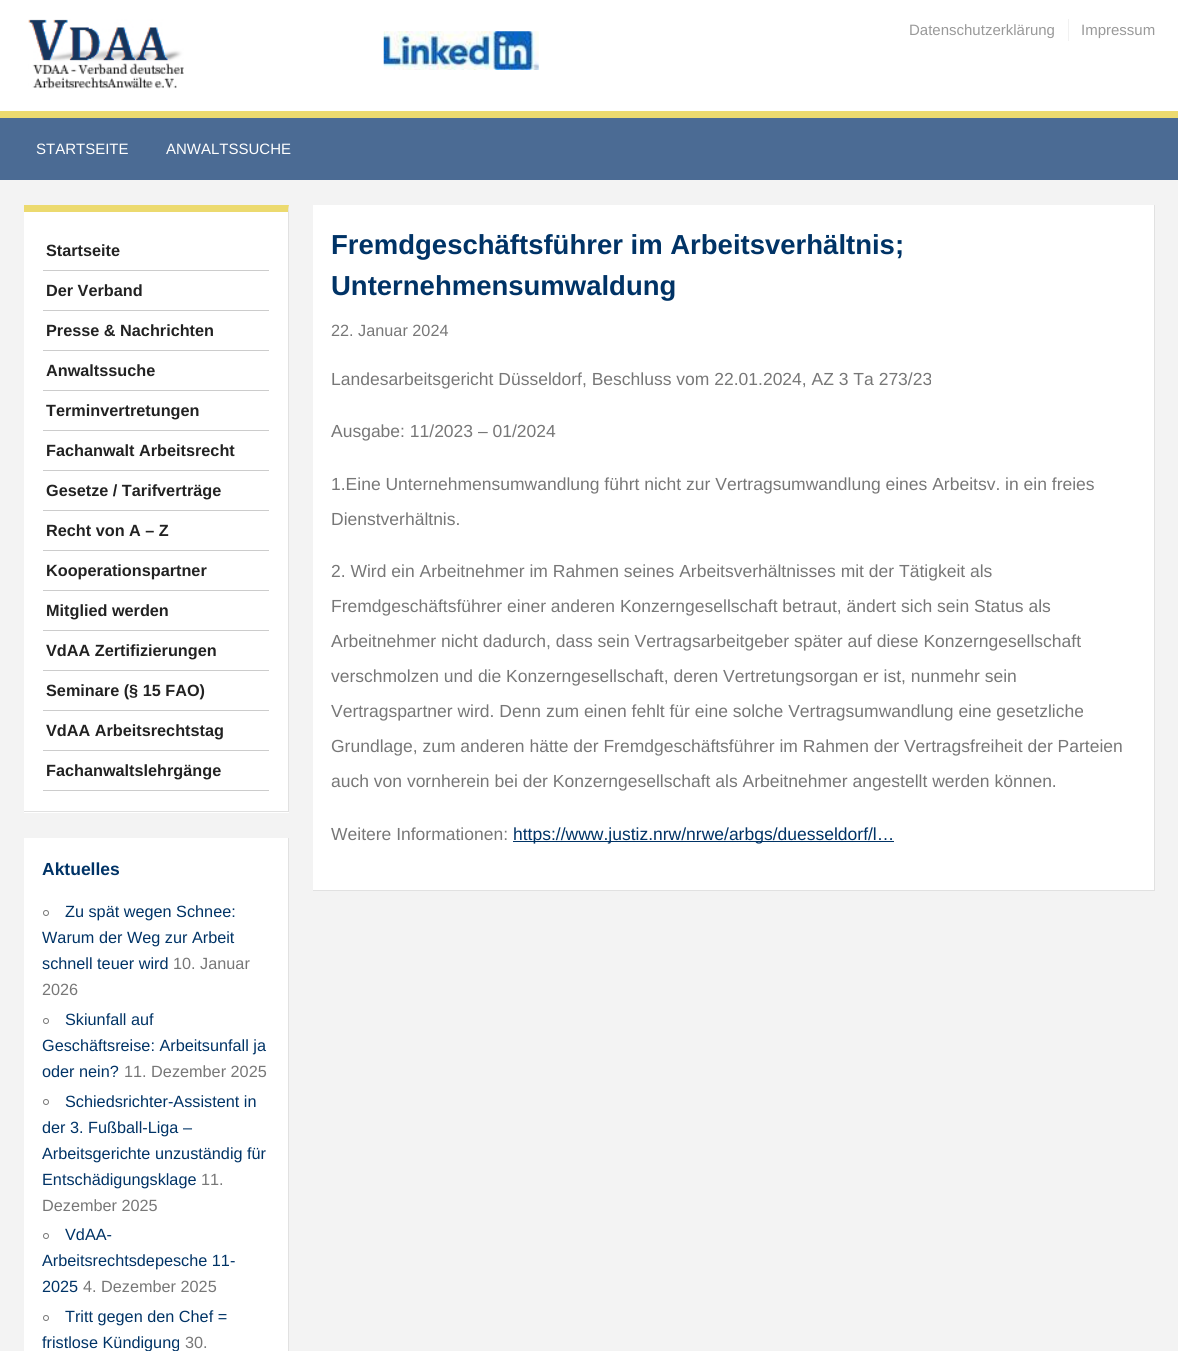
#include <cairo.h>
#include <math.h>
#include <stddef.h>


static void picture(cairo_t *cr, const char *path, double x, double y, double w, double h) {
    cairo_surface_t *image = cairo_image_surface_create_from_png(path);
    cairo_save(cr);
    cairo_set_source_surface(cr, image, x, y);
    cairo_rectangle(cr, x, y, w, h);
    cairo_fill(cr);
    cairo_restore(cr);
    cairo_surface_destroy(image);
}

int main(void) {
    cairo_surface_t *surface = cairo_image_surface_create(CAIRO_FORMAT_RGB24, 1178, 1351);
    cairo_t *cr = cairo_create(surface);
    cairo_font_options_t *options = cairo_font_options_create();
    cairo_font_options_set_hint_metrics(options, CAIRO_HINT_METRICS_OFF);
    cairo_font_options_set_hint_style(options, CAIRO_HINT_STYLE_NONE);
    cairo_set_font_options(cr, options);
    cairo_set_miter_limit(cr, 4);
    cairo_set_source_rgb(cr, 0.953, 0.953, 0.953);
    cairo_paint(cr);
    cairo_set_source_rgb(cr, 1, 1, 1);
    cairo_rectangle(cr, 0, 0, 1178, 111);
    cairo_fill(cr);
    picture(cr, "img1.png", 28, 19, 156, 70);
    picture(cr, "img2.png", 383, 31, 156, 39);
    cairo_select_font_face(cr, "Liberation Sans", CAIRO_FONT_SLANT_NORMAL, CAIRO_FONT_WEIGHT_NORMAL);
    cairo_set_font_size(cr, 15);
    cairo_set_source_rgb(cr, 0.6, 0.6, 0.6);
    cairo_move_to(cr, 909, 35);
    cairo_show_text(cr, "Datenschutzerklärung");
    cairo_set_source_rgb(cr, 0.945, 0.945, 0.945);
    cairo_rectangle(cr, 1068, 19, 1, 22);
    cairo_fill(cr);
    cairo_set_source_rgb(cr, 0.6, 0.6, 0.6);
    cairo_move_to(cr, 1081, 35);
    cairo_show_text(cr, "Impressum");
    cairo_set_source_rgb(cr, 0.294, 0.42, 0.58);
    cairo_rectangle(cr, 0, 118, 1178, 62);
    cairo_fill(cr);
    cairo_set_source_rgb(cr, 0.922, 0.855, 0.435);
    cairo_rectangle(cr, 0, 111, 1178, 7);
    cairo_fill(cr);
    cairo_set_source_rgb(cr, 1, 1, 1);
    cairo_move_to(cr, 36, 154);
    cairo_show_text(cr, "STARTSEITE");
    cairo_move_to(cr, 166, 154);
    cairo_show_text(cr, "ANWALTSSUCHE");
    cairo_rectangle(cr, 24, 205, 265, 608);
    cairo_fill(cr);
    cairo_set_source_rgb(cr, 0.922, 0.855, 0.435);
    cairo_new_path(cr);
    cairo_move_to(cr, 24, 205);
    cairo_line_to(cr, 289, 205);
    cairo_line_to(cr, 288, 212);
    cairo_line_to(cr, 24, 212);
    cairo_close_path(cr);
    cairo_fill(cr);
    cairo_set_source_rgb(cr, 0.882, 0.882, 0.882);
    cairo_new_path(cr);
    cairo_move_to(cr, 289, 205);
    cairo_line_to(cr, 289, 812);
    cairo_line_to(cr, 288, 811);
    cairo_line_to(cr, 288, 212);
    cairo_close_path(cr);
    cairo_fill(cr);
    cairo_rectangle(cr, 24, 811, 265, 1);
    cairo_fill(cr);
    cairo_set_source_rgb(cr, 0.8, 0.8, 0.8);
    cairo_rectangle(cr, 43, 270, 226, 1);
    cairo_fill(cr);
    cairo_select_font_face(cr, "Liberation Sans", CAIRO_FONT_SLANT_NORMAL, CAIRO_FONT_WEIGHT_BOLD);
    cairo_set_font_size(cr, 16.25);
    cairo_set_source_rgb(cr, 0.133, 0.133, 0.133);
    cairo_move_to(cr, 46, 256);
    cairo_show_text(cr, "Startseite");
    cairo_set_source_rgb(cr, 0.8, 0.8, 0.8);
    cairo_rectangle(cr, 43, 310, 226, 1);
    cairo_fill(cr);
    cairo_set_source_rgb(cr, 0.133, 0.133, 0.133);
    cairo_move_to(cr, 46, 296);
    cairo_show_text(cr, "Der Verband");
    cairo_set_source_rgb(cr, 0.8, 0.8, 0.8);
    cairo_rectangle(cr, 43, 350, 226, 1);
    cairo_fill(cr);
    cairo_set_source_rgb(cr, 0.133, 0.133, 0.133);
    cairo_move_to(cr, 46, 336);
    cairo_show_text(cr, "Presse & Nachrichten");
    cairo_set_source_rgb(cr, 0.8, 0.8, 0.8);
    cairo_rectangle(cr, 43, 390, 226, 1);
    cairo_fill(cr);
    cairo_set_source_rgb(cr, 0.133, 0.133, 0.133);
    cairo_move_to(cr, 46, 376);
    cairo_show_text(cr, "Anwaltssuche");
    cairo_set_source_rgb(cr, 0.8, 0.8, 0.8);
    cairo_rectangle(cr, 43, 430, 226, 1);
    cairo_fill(cr);
    cairo_set_source_rgb(cr, 0.133, 0.133, 0.133);
    cairo_move_to(cr, 46, 416);
    cairo_show_text(cr, "Terminvertretungen");
    cairo_set_source_rgb(cr, 0.8, 0.8, 0.8);
    cairo_rectangle(cr, 43, 470, 226, 1);
    cairo_fill(cr);
    cairo_set_source_rgb(cr, 0.133, 0.133, 0.133);
    cairo_move_to(cr, 46, 456);
    cairo_show_text(cr, "Fachanwalt Arbeitsrecht");
    cairo_set_source_rgb(cr, 0.8, 0.8, 0.8);
    cairo_rectangle(cr, 43, 510, 226, 1);
    cairo_fill(cr);
    cairo_set_source_rgb(cr, 0.133, 0.133, 0.133);
    cairo_move_to(cr, 46, 496);
    cairo_show_text(cr, "Gesetze / Tarifverträge");
    cairo_set_source_rgb(cr, 0.8, 0.8, 0.8);
    cairo_rectangle(cr, 43, 550, 226, 1);
    cairo_fill(cr);
    cairo_set_source_rgb(cr, 0.133, 0.133, 0.133);
    cairo_move_to(cr, 46, 536);
    cairo_show_text(cr, "Recht von A – Z");
    cairo_set_source_rgb(cr, 0.8, 0.8, 0.8);
    cairo_rectangle(cr, 43, 590, 226, 1);
    cairo_fill(cr);
    cairo_set_source_rgb(cr, 0.133, 0.133, 0.133);
    cairo_move_to(cr, 46, 576);
    cairo_show_text(cr, "Kooperationspartner");
    cairo_set_source_rgb(cr, 0.8, 0.8, 0.8);
    cairo_rectangle(cr, 43, 630, 226, 1);
    cairo_fill(cr);
    cairo_set_source_rgb(cr, 0.133, 0.133, 0.133);
    cairo_move_to(cr, 46, 616);
    cairo_show_text(cr, "Mitglied werden");
    cairo_set_source_rgb(cr, 0.8, 0.8, 0.8);
    cairo_rectangle(cr, 43, 670, 226, 1);
    cairo_fill(cr);
    cairo_set_source_rgb(cr, 0.133, 0.133, 0.133);
    cairo_move_to(cr, 46, 656);
    cairo_show_text(cr, "VdAA Zertifizierungen");
    cairo_set_source_rgb(cr, 0.8, 0.8, 0.8);
    cairo_rectangle(cr, 43, 710, 226, 1);
    cairo_fill(cr);
    cairo_set_source_rgb(cr, 0.133, 0.133, 0.133);
    cairo_move_to(cr, 46, 696);
    cairo_show_text(cr, "Seminare (§ 15 FAO)");
    cairo_set_source_rgb(cr, 0.8, 0.8, 0.8);
    cairo_rectangle(cr, 43, 750, 226, 1);
    cairo_fill(cr);
    cairo_set_source_rgb(cr, 0.133, 0.133, 0.133);
    cairo_move_to(cr, 46, 736);
    cairo_show_text(cr, "VdAA Arbeitsrechtstag");
    cairo_set_source_rgb(cr, 0.8, 0.8, 0.8);
    cairo_rectangle(cr, 43, 790, 226, 1);
    cairo_fill(cr);
    cairo_set_source_rgb(cr, 0.133, 0.133, 0.133);
    cairo_move_to(cr, 46, 776);
    cairo_show_text(cr, "Fachanwaltslehrgänge");
    cairo_set_source_rgb(cr, 1, 1, 1);
    cairo_rectangle(cr, 24, 838, 264, 513);
    cairo_fill(cr);
    cairo_set_source_rgb(cr, 0.882, 0.882, 0.882);
    cairo_rectangle(cr, 288, 838, 1, 513);
    cairo_fill(cr);
    cairo_set_font_size(cr, 17.5);
    cairo_set_source_rgb(cr, 0, 0.2, 0.4);
    cairo_move_to(cr, 42, 875);
    cairo_show_text(cr, "Aktuelles");
    cairo_new_path(cr);
    cairo_arc(cr, 46, 913, 2.5, 0, 2 * M_PI);
    cairo_set_source_rgb(cr, 0.467, 0.467, 0.467);
    cairo_set_line_width(cr, 1);
    cairo_stroke(cr);
    cairo_select_font_face(cr, "Liberation Sans", CAIRO_FONT_SLANT_NORMAL, CAIRO_FONT_WEIGHT_NORMAL);
    cairo_set_font_size(cr, 16.25);
    cairo_set_source_rgb(cr, 0, 0.2, 0.4);
    cairo_move_to(cr, 65, 917);
    cairo_show_text(cr, "Zu spät wegen Schnee:");
    cairo_move_to(cr, 42, 943);
    cairo_show_text(cr, "Warum der Weg zur Arbeit");
    cairo_move_to(cr, 42, 969);
    cairo_show_text(cr, "schnell teuer wird");
    cairo_set_source_rgb(cr, 0.467, 0.467, 0.467);
    cairo_move_to(cr, 173, 969);
    cairo_show_text(cr, "10. Januar");
    cairo_move_to(cr, 42, 995);
    cairo_show_text(cr, "2026");
    cairo_new_path(cr);
    cairo_arc(cr, 46, 1021, 2.5, 0, 2 * M_PI);
    cairo_stroke(cr);
    cairo_set_source_rgb(cr, 0, 0.2, 0.4);
    cairo_move_to(cr, 65, 1025);
    cairo_show_text(cr, "Skiunfall auf");
    cairo_move_to(cr, 42, 1051);
    cairo_show_text(cr, "Geschäftsreise: Arbeitsunfall ja");
    cairo_move_to(cr, 42, 1077);
    cairo_show_text(cr, "oder nein?");
    cairo_set_source_rgb(cr, 0.467, 0.467, 0.467);
    cairo_move_to(cr, 124, 1077);
    cairo_show_text(cr, "11. Dezember 2025");
    cairo_new_path(cr);
    cairo_arc(cr, 46, 1102, 2.5, 0, 2 * M_PI);
    cairo_stroke(cr);
    cairo_set_source_rgb(cr, 0, 0.2, 0.4);
    cairo_move_to(cr, 65, 1107);
    cairo_show_text(cr, "Schiedsrichter-Assistent in");
    cairo_move_to(cr, 42, 1133);
    cairo_show_text(cr, "der 3. Fußball-Liga –");
    cairo_move_to(cr, 42, 1159);
    cairo_show_text(cr, "Arbeitsgerichte unzuständig für");
    cairo_move_to(cr, 42, 1185);
    cairo_show_text(cr, "Entschädigungsklage");
    cairo_set_source_rgb(cr, 0.467, 0.467, 0.467);
    cairo_move_to(cr, 201, 1185);
    cairo_show_text(cr, "11.");
    cairo_move_to(cr, 42, 1211);
    cairo_show_text(cr, "Dezember 2025");
    cairo_new_path(cr);
    cairo_arc(cr, 46, 1236, 2.5, 0, 2 * M_PI);
    cairo_stroke(cr);
    cairo_set_source_rgb(cr, 0, 0.2, 0.4);
    cairo_move_to(cr, 65, 1240);
    cairo_show_text(cr, "VdAA-");
    cairo_move_to(cr, 42, 1266);
    cairo_show_text(cr, "Arbeitsrechtsdepesche 11-");
    cairo_move_to(cr, 42, 1292);
    cairo_show_text(cr, "2025");
    cairo_set_source_rgb(cr, 0.467, 0.467, 0.467);
    cairo_move_to(cr, 83, 1292);
    cairo_show_text(cr, "4. Dezember 2025");
    cairo_new_path(cr);
    cairo_arc(cr, 46, 1318, 2.5, 0, 2 * M_PI);
    cairo_stroke(cr);
    cairo_set_source_rgb(cr, 0, 0.2, 0.4);
    cairo_move_to(cr, 65, 1322);
    cairo_show_text(cr, "Tritt gegen den Chef =");
    cairo_move_to(cr, 42, 1348);
    cairo_show_text(cr, "fristlose Kündigung");
    cairo_set_source_rgb(cr, 0.467, 0.467, 0.467);
    cairo_move_to(cr, 185, 1348);
    cairo_show_text(cr, "30.");
    cairo_set_source_rgb(cr, 1, 1, 1);
    cairo_rectangle(cr, 313, 205, 841, 685);
    cairo_fill(cr);
    cairo_set_source_rgb(cr, 0.882, 0.882, 0.882);
    cairo_rectangle(cr, 1154, 205, 1, 686);
    cairo_fill(cr);
    cairo_rectangle(cr, 313, 890, 842, 1);
    cairo_fill(cr);
    cairo_select_font_face(cr, "Liberation Sans", CAIRO_FONT_SLANT_NORMAL, CAIRO_FONT_WEIGHT_BOLD);
    cairo_set_font_size(cr, 27.5);
    cairo_set_source_rgb(cr, 0, 0.2, 0.4);
    cairo_move_to(cr, 331, 254);
    cairo_show_text(cr, "Fremdgeschäftsführer im Arbeitsverhältnis;");
    cairo_move_to(cr, 331, 295);
    cairo_show_text(cr, "Unternehmensumwaldung");
    cairo_select_font_face(cr, "Liberation Sans", CAIRO_FONT_SLANT_NORMAL, CAIRO_FONT_WEIGHT_NORMAL);
    cairo_set_font_size(cr, 16.25);
    cairo_set_source_rgb(cr, 0.467, 0.467, 0.467);
    cairo_move_to(cr, 331, 336);
    cairo_show_text(cr, "22. Januar 2024");
    cairo_set_font_size(cr, 17.5);
    cairo_move_to(cr, 331, 385);
    cairo_show_text(cr, "Landesarbeitsgericht Düsseldorf, Beschluss vom 22.01.2024, AZ 3 Ta 273/23");
    cairo_move_to(cr, 331, 437);
    cairo_show_text(cr, "Ausgabe: 11/2023 – 01/2024");
    cairo_move_to(cr, 331, 490);
    cairo_show_text(cr, "1.Eine Unternehmensumwandlung führt nicht zur Vertragsumwandlung eines Arbeitsv. in ein freies");
    cairo_move_to(cr, 331, 525);
    cairo_show_text(cr, "Dienstverhältnis.");
    cairo_move_to(cr, 331, 577);
    cairo_show_text(cr, "2. Wird ein Arbeitnehmer im Rahmen seines Arbeitsverhältnisses mit der Tätigkeit als");
    cairo_move_to(cr, 331, 612);
    cairo_show_text(cr, "Fremdgeschäftsführer einer anderen Konzerngesellschaft betraut, ändert sich sein Status als");
    cairo_move_to(cr, 331, 647);
    cairo_show_text(cr, "Arbeitnehmer nicht dadurch, dass sein Vertragsarbeitgeber später auf diese Konzerngesellschaft");
    cairo_move_to(cr, 331, 682);
    cairo_show_text(cr, "verschmolzen und die Konzerngesellschaft, deren Vertretungsorgan er ist, nunmehr sein");
    cairo_move_to(cr, 331, 717);
    cairo_show_text(cr, "Vertragspartner wird. Denn zum einen fehlt für eine solche Vertragsumwandlung eine gesetzliche");
    cairo_move_to(cr, 331, 752);
    cairo_show_text(cr, "Grundlage, zum anderen hätte der Fremdgeschäftsführer im Rahmen der Vertragsfreiheit der Parteien");
    cairo_move_to(cr, 331, 787);
    cairo_show_text(cr, "auch von vornherein bei der Konzerngesellschaft als Arbeitnehmer angestellt werden können.");
    cairo_move_to(cr, 331, 840);
    cairo_show_text(cr, "Weitere Informationen:");
    cairo_set_source_rgb(cr, 0, 0.2, 0.4);
    cairo_rectangle(cr, 513, 841, 381, 1);
    cairo_fill(cr);
    cairo_move_to(cr, 513, 840);
    cairo_show_text(cr, "https://www.justiz.nrw/nrwe/arbgs/duesseldorf/l…");
    cairo_surface_write_to_png(surface, "page.png");
    cairo_font_options_destroy(options);
    cairo_destroy(cr);
    cairo_surface_destroy(surface);
    return 0;
}
